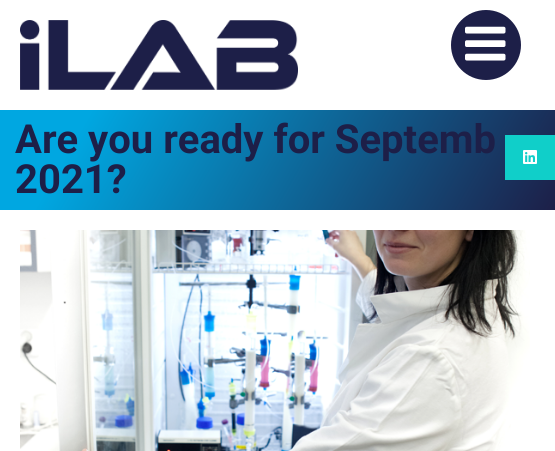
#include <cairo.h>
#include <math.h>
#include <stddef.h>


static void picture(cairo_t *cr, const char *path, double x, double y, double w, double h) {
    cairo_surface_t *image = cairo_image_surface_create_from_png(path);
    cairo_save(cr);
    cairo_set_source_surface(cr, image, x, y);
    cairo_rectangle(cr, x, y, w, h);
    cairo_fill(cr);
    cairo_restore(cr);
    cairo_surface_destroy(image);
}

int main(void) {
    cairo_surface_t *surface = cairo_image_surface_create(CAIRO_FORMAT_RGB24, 555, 451);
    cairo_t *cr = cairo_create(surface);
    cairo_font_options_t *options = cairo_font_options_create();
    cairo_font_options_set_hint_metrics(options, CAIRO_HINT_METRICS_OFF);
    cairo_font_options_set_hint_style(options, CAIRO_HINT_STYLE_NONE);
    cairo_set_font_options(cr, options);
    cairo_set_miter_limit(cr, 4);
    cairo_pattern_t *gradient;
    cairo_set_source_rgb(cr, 1, 1, 1);
    cairo_paint(cr);
    picture(cr, "img1.png", 20, 20, 278, 70);
    cairo_set_source_rgb(cr, 0.114, 0.122, 0.282);
    cairo_arc(cr, 486, 45, 35, 0, 2 * M_PI);
    cairo_fill(cr);
    picture(cr, "img2.png", 465, 26, 41, 35);
    gradient = cairo_pattern_create_linear(48, 27, 507, 293);
    cairo_pattern_add_color_stop_rgba(gradient, 0.15, 0, 0.655, 0.882, 1);
    cairo_pattern_add_color_stop_rgba(gradient, 1, 0.114, 0.122, 0.282, 1);
    cairo_set_source(cr, gradient);
    cairo_pattern_destroy(gradient);
    cairo_rectangle(cr, 0, 110, 555, 100);
    cairo_fill(cr);
    cairo_select_font_face(cr, "Roboto", CAIRO_FONT_SLANT_NORMAL, CAIRO_FONT_WEIGHT_BOLD);
    cairo_set_font_size(cr, 40);
    cairo_set_source_rgb(cr, 0.114, 0.122, 0.282);
    cairo_move_to(cr, 15, 153);
    cairo_show_text(cr, "Are you ready for Septemb");
    cairo_move_to(cr, 15, 193);
    cairo_show_text(cr, "2021?");
    picture(cr, "img3.png", 20, 230, 510, 221);
    cairo_set_source_rgb(cr, 0.063, 0.812, 0.788);
    cairo_rectangle(cr, 505, 135, 50, 45);
    cairo_fill(cr);
    picture(cr, "img4.png", 523, 150, 14, 14);
    cairo_surface_write_to_png(surface, "page.png");
    cairo_font_options_destroy(options);
    cairo_destroy(cr);
    cairo_surface_destroy(surface);
    return 0;
}
